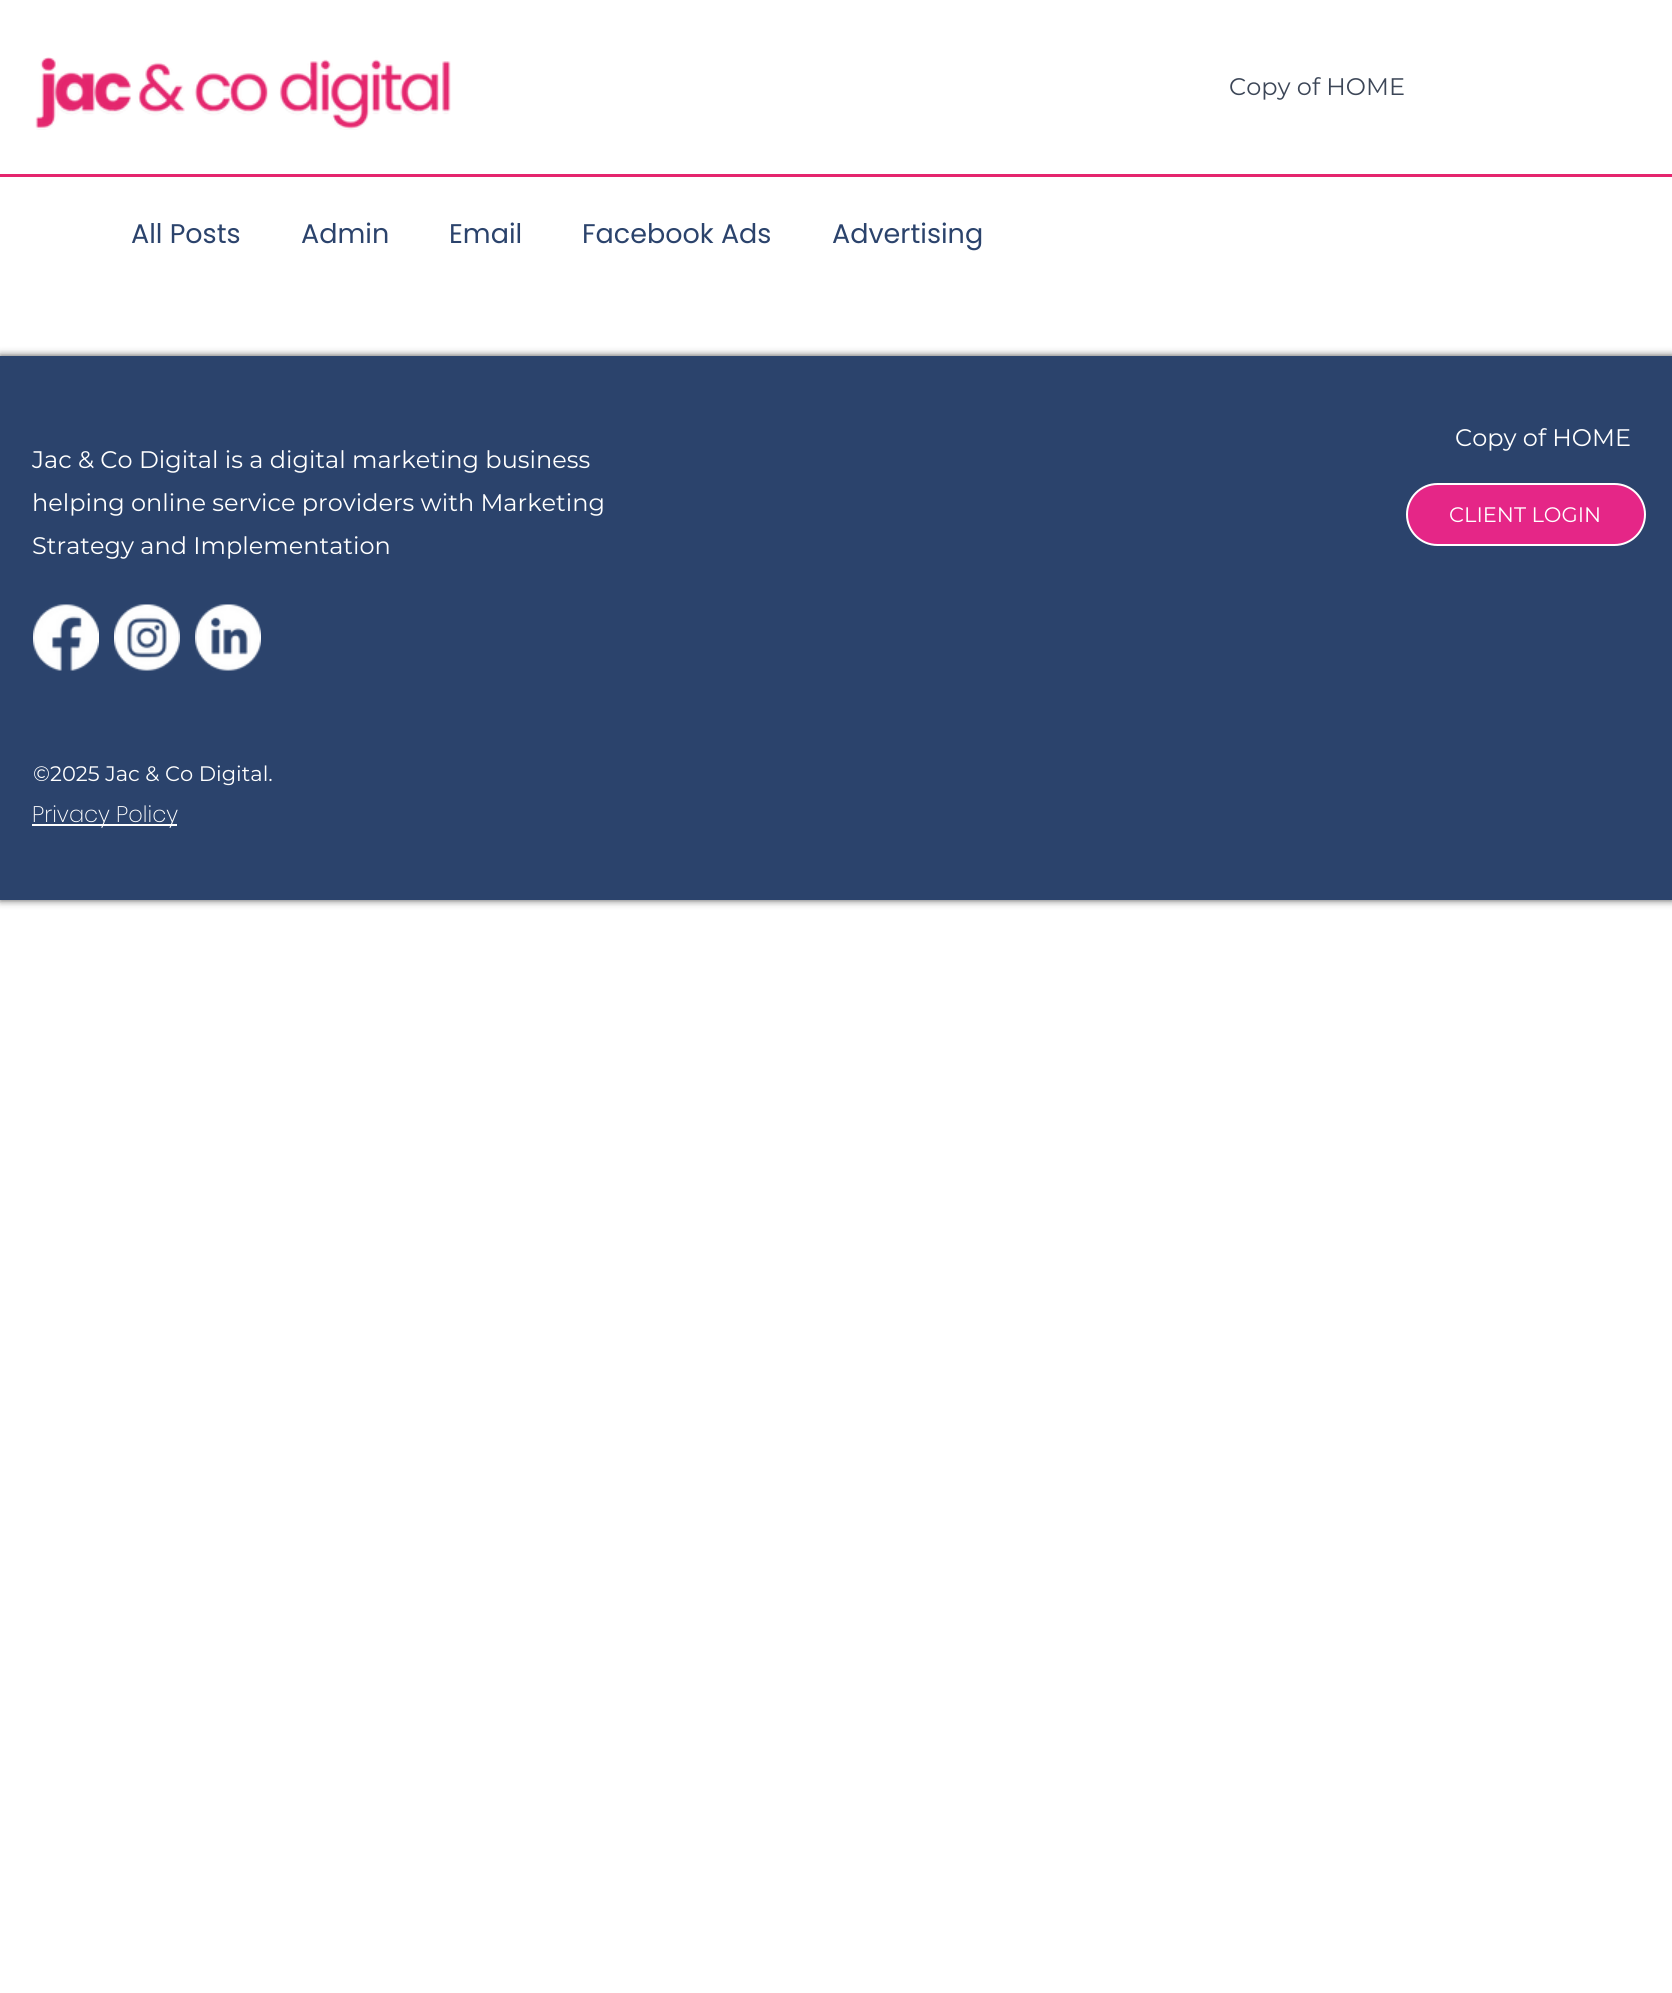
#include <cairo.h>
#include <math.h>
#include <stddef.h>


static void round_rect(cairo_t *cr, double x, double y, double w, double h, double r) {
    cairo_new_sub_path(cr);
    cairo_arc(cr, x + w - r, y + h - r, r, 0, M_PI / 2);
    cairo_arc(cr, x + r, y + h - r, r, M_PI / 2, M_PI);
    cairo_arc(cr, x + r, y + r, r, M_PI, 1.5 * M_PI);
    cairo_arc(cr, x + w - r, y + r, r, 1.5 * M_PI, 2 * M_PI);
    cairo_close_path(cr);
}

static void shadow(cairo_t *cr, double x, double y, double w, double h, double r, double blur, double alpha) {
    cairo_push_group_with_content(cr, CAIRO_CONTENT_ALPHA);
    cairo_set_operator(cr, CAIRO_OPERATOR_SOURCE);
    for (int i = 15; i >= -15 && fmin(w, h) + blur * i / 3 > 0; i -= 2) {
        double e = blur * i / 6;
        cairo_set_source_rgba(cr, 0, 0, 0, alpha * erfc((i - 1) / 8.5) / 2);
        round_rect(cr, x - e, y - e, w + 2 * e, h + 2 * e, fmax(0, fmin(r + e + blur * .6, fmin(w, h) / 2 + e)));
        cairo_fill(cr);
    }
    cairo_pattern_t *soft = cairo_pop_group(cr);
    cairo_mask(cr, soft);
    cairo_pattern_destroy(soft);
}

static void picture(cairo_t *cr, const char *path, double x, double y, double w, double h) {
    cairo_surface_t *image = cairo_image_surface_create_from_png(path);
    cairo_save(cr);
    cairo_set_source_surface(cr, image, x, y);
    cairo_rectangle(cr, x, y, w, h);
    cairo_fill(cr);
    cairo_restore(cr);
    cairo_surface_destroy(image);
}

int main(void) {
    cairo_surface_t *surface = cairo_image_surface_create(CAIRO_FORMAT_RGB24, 1672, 1993);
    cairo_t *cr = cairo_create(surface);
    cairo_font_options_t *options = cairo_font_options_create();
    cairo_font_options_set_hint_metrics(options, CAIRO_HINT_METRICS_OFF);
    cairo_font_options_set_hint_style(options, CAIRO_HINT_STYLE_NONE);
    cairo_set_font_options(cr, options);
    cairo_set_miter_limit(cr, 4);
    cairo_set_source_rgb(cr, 1, 1, 1);
    cairo_paint(cr);
    picture(cr, "img1.png", 35, 57, 416, 73);
    cairo_select_font_face(cr, "Montserrat", CAIRO_FONT_SLANT_NORMAL, CAIRO_FONT_WEIGHT_NORMAL);
    cairo_set_font_size(cr, 24);
    cairo_set_source_rgb(cr, 0.235, 0.275, 0.341);
    cairo_move_to(cr, 1229, 95);
    cairo_show_text(cr, "Copy of HOME");
    cairo_set_source_rgb(cr, 0.898, 0.145, 0.431);
    cairo_new_path(cr);
    cairo_move_to(cr, -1, 0);
    cairo_line_to(cr, -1, 177);
    cairo_line_to(cr, 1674, 177);
    cairo_line_to(cr, 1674, 0);
    cairo_line_to(cr, 1672, 0);
    cairo_line_to(cr, 1672, 174);
    cairo_line_to(cr, 0, 174);
    cairo_line_to(cr, 0, 0);
    cairo_close_path(cr);
    cairo_fill(cr);
    cairo_select_font_face(cr, "Poppins", CAIRO_FONT_SLANT_NORMAL, CAIRO_FONT_WEIGHT_NORMAL);
    cairo_set_font_size(cr, 27);
    cairo_set_source_rgb(cr, 0.169, 0.263, 0.424);
    cairo_move_to(cr, 131, 243);
    cairo_show_text(cr, "All Posts");
    cairo_move_to(cr, 301, 243);
    cairo_show_text(cr, "Admin");
    cairo_move_to(cr, 449, 243);
    cairo_show_text(cr, "Email");
    cairo_move_to(cr, 582, 243);
    cairo_show_text(cr, "Facebook Ads");
    cairo_move_to(cr, 832, 243);
    cairo_show_text(cr, "Advertising");
    cairo_set_source_rgb(cr, 0, 0, 0);
    shadow(cr, 0, 356, 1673, 544, 0, 4, 0.7);
    cairo_set_source_rgb(cr, 0.169, 0.263, 0.424);
    cairo_rectangle(cr, 0, 356, 1672, 544);
    cairo_fill(cr);
    cairo_select_font_face(cr, "Montserrat", CAIRO_FONT_SLANT_NORMAL, CAIRO_FONT_WEIGHT_NORMAL);
    cairo_set_font_size(cr, 24);
    cairo_set_source_rgb(cr, 1, 1, 1);
    cairo_move_to(cr, 32, 468);
    cairo_show_text(cr, "Jac & Co Digital is a digital marketing business");
    cairo_move_to(cr, 32, 511);
    cairo_show_text(cr, "helping online service providers with Marketing");
    cairo_move_to(cr, 32, 554);
    cairo_show_text(cr, "Strategy and Implementation");
    picture(cr, "img2.png", 33, 604, 66, 67);
    picture(cr, "img3.png", 114, 604, 66, 67);
    picture(cr, "img4.png", 195, 604, 66, 67);
    cairo_set_font_size(cr, 21);
    cairo_move_to(cr, 33, 781);
    cairo_show_text(cr, "©2025 Jac & Co Digital.");
    cairo_rectangle(cr, 32, 824, 145, 2);
    cairo_fill(cr);
    cairo_select_font_face(cr, "Poppins ExtraLight", CAIRO_FONT_SLANT_NORMAL, CAIRO_FONT_WEIGHT_NORMAL);
    cairo_set_font_size(cr, 22.5);
    cairo_move_to(cr, 32, 822);
    cairo_show_text(cr, "Privacy Policy");
    cairo_select_font_face(cr, "Montserrat", CAIRO_FONT_SLANT_NORMAL, CAIRO_FONT_WEIGHT_NORMAL);
    cairo_set_font_size(cr, 24);
    cairo_move_to(cr, 1455, 446);
    cairo_show_text(cr, "Copy of HOME");
    cairo_set_source_rgb(cr, 0.898, 0.149, 0.529);
    round_rect(cr, 1407, 484, 238, 61, 30.5);
    cairo_fill_preserve(cr);
    cairo_set_source_rgb(cr, 1, 1, 1);
    cairo_stroke(cr);
    cairo_set_font_size(cr, 21);
    cairo_move_to(cr, 1449, 522);
    cairo_show_text(cr, "CLIENT LOGIN");
    cairo_surface_write_to_png(surface, "page.png");
    cairo_font_options_destroy(options);
    cairo_destroy(cr);
    cairo_surface_destroy(surface);
    return 0;
}
